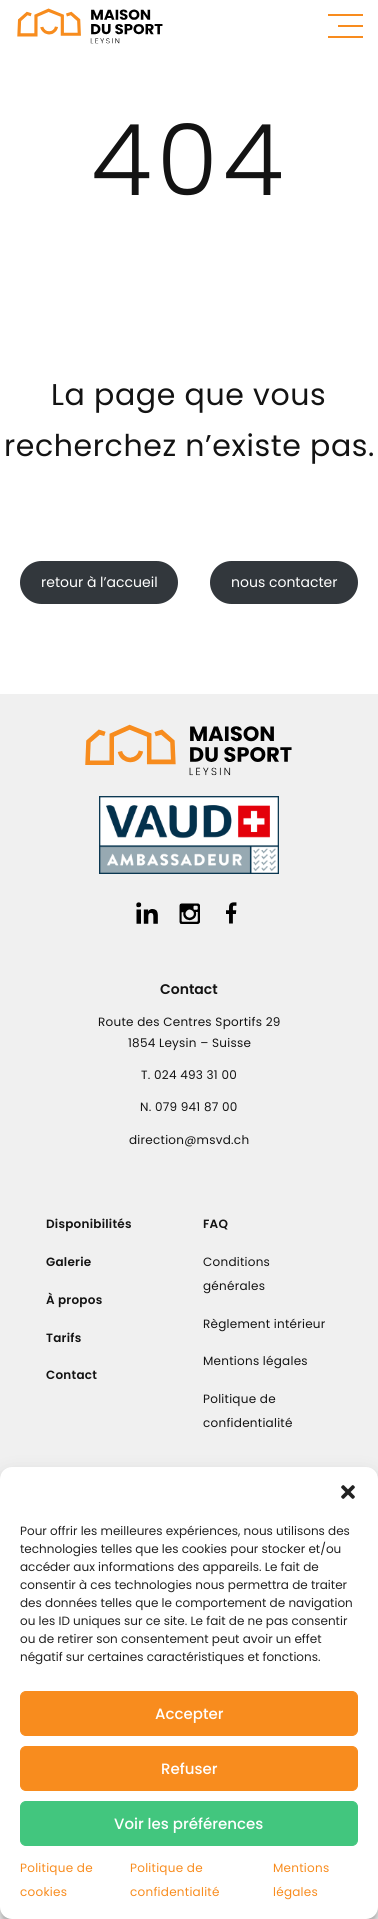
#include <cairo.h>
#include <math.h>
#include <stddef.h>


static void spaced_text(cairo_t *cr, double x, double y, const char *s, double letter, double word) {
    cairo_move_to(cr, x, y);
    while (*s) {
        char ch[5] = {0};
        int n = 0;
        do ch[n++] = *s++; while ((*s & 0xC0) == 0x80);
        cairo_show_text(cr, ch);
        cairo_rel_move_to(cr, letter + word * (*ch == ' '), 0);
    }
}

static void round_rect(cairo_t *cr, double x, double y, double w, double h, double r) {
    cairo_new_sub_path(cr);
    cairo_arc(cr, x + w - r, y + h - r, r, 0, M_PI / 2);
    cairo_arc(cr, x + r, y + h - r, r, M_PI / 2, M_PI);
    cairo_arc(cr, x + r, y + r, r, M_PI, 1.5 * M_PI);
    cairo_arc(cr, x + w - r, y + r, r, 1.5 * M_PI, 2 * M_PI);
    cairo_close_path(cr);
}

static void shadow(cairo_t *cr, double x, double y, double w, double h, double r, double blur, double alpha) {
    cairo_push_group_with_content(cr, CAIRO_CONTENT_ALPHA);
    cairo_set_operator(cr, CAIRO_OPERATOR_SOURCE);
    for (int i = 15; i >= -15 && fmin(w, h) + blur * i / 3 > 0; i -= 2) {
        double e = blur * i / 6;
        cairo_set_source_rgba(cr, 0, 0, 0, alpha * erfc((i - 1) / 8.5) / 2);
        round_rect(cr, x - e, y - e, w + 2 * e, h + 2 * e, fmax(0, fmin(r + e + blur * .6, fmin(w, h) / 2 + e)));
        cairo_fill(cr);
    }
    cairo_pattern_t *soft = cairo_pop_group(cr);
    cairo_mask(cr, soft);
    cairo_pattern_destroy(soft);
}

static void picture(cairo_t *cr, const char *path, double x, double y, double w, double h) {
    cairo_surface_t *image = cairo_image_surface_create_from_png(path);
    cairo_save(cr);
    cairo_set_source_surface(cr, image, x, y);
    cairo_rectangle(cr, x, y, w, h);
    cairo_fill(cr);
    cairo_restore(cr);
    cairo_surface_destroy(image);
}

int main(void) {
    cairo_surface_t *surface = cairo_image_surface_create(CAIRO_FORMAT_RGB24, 378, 1919);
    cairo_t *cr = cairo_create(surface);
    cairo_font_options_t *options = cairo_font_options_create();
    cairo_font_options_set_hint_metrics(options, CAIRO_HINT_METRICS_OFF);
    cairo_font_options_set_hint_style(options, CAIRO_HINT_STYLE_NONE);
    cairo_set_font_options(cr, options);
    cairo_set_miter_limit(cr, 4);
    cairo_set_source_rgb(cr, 1, 1, 1);
    cairo_paint(cr);
    picture(cr, "img1.png", 17, 8, 146, 36);
    cairo_set_source_rgb(cr, 0.969, 0.549, 0.118);
    cairo_rectangle(cr, 328, 14, 35, 2);
    cairo_fill(cr);
    cairo_rectangle(cr, 338, 25, 25, 2);
    cairo_fill(cr);
    cairo_rectangle(cr, 328, 36, 35, 2);
    cairo_fill(cr);
    cairo_select_font_face(cr, "Poppins Light", CAIRO_FONT_SLANT_NORMAL, CAIRO_FONT_WEIGHT_NORMAL);
    cairo_set_font_size(cr, 99);
    cairo_set_source_rgb(cr, 0.078, 0.078, 0.078);
    spaced_text(cr, 91, 195, "404", 5, 0);
    cairo_select_font_face(cr, "Poppins", CAIRO_FONT_SLANT_NORMAL, CAIRO_FONT_WEIGHT_NORMAL);
    cairo_set_font_size(cr, 30);
    spaced_text(cr, 51, 405, "La page que vous", 0.6, 0);
    spaced_text(cr, 4, 456, "recherchez n’existe pas.", 0.6, 0);
    cairo_set_source_rgb(cr, 0.196, 0.216, 0.235);
    round_rect(cr, 20, 561, 158, 43, 21.5);
    cairo_fill(cr);
    cairo_set_font_size(cr, 14);
    cairo_set_source_rgb(cr, 1, 1, 1);
    cairo_move_to(cr, 41, 587);
    cairo_show_text(cr, "retour à l’accueil");
    cairo_set_source_rgb(cr, 0.196, 0.216, 0.235);
    round_rect(cr, 210, 561, 148, 43, 21.5);
    cairo_fill(cr);
    cairo_set_source_rgb(cr, 1, 1, 1);
    cairo_move_to(cr, 231, 587);
    cairo_show_text(cr, "nous contacter");
    cairo_set_source_rgb(cr, 0.941, 0.941, 0.941);
    cairo_rectangle(cr, 0, 694, 378, 785);
    cairo_fill(cr);
    picture(cr, "img2.png", 85, 724, 207, 52);
    picture(cr, "img3.png", 99, 796, 180, 78);
    picture(cr, "img4.png", 136, 902, 22, 22);
    picture(cr, "img5.png", 179, 903, 21, 21);
    picture(cr, "img6.png", 226, 902, 11, 22);
    cairo_select_font_face(cr, "Poppins SemiBold", CAIRO_FONT_SLANT_NORMAL, CAIRO_FONT_WEIGHT_NORMAL);
    cairo_set_source_rgb(cr, 0.078, 0.078, 0.078);
    cairo_move_to(cr, 160, 994);
    cairo_show_text(cr, "Contact");
    cairo_select_font_face(cr, "Poppins", CAIRO_FONT_SLANT_NORMAL, CAIRO_FONT_WEIGHT_NORMAL);
    cairo_set_font_size(cr, 12);
    spaced_text(cr, 98, 1026, "Route des Centres Sportifs 29", 0.25, 0);
    spaced_text(cr, 128, 1047, "1854 Leysin – Suisse", 0.25, 0);
    spaced_text(cr, 141, 1079, "T. 024 493 31 00", 0.25, 0);
    spaced_text(cr, 140, 1111, "N. 079 941 87 00", 0.25, 0);
    spaced_text(cr, 129, 1144, "direction@msvd.ch", 0.25, 0);
    cairo_select_font_face(cr, "Poppins SemiBold", CAIRO_FONT_SLANT_NORMAL, CAIRO_FONT_WEIGHT_NORMAL);
    spaced_text(cr, 46, 1228, "Disponibilités", 0.25, 0);
    spaced_text(cr, 46, 1266, "Galerie", 0.25, 0);
    spaced_text(cr, 46, 1304, "À propos", 0.25, 0);
    spaced_text(cr, 46, 1342, "Tarifs", 0.25, 0);
    spaced_text(cr, 46, 1379, "Contact", 0.25, 0);
    spaced_text(cr, 203, 1228, "FAQ", 0.25, 0);
    cairo_select_font_face(cr, "Poppins", CAIRO_FONT_SLANT_NORMAL, CAIRO_FONT_WEIGHT_NORMAL);
    spaced_text(cr, 203, 1266, "Conditions", 0.25, 0);
    spaced_text(cr, 203, 1290, "générales", 0.25, 0);
    spaced_text(cr, 203, 1328, "Règlement intérieur", 0.25, 0);
    spaced_text(cr, 203, 1365, "Mentions légales", 0.25, 0);
    spaced_text(cr, 203, 1403, "Politique de", 0.25, 0);
    spaced_text(cr, 203, 1427, "confidentialité", 0.25, 0);
    cairo_set_source_rgb(cr, 0, 0, 0);
    shadow(cr, 0, 1473, 378, 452, 12, 3, 0.23);
    shadow(cr, 0, 1477, 378, 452, 12, 10, 0.19);
    cairo_set_source_rgb(cr, 1, 1, 1);
    round_rect(cr, 0, 1467, 378, 452, 12);
    cairo_fill(cr);
    picture(cr, "img7.png", 341, 1485, 14, 14);
    cairo_set_source_rgb(cr, 0.133, 0.133, 0.133);
    cairo_move_to(cr, 20, 1535);
    cairo_show_text(cr, "Pour offrir les meilleures expériences, nous utilisons des");
    cairo_move_to(cr, 20, 1553);
    cairo_show_text(cr, "technologies telles que les cookies pour stocker et/ou");
    cairo_move_to(cr, 20, 1571);
    cairo_show_text(cr, "accéder aux informations des appareils. Le fait de");
    cairo_move_to(cr, 20, 1589);
    cairo_show_text(cr, "consentir à ces technologies nous permettra de traiter");
    cairo_move_to(cr, 20, 1607);
    cairo_show_text(cr, "des données telles que le comportement de navigation");
    cairo_move_to(cr, 20, 1625);
    cairo_show_text(cr, "ou les ID uniques sur ce site. Le fait de ne pas consentir");
    cairo_move_to(cr, 20, 1643);
    cairo_show_text(cr, "ou de retirer son consentement peut avoir un effet");
    cairo_move_to(cr, 20, 1661);
    cairo_show_text(cr, "négatif sur certaines caractéristiques et fonctions.");
    cairo_set_source_rgb(cr, 0.969, 0.549, 0.118);
    round_rect(cr, 20.5, 1691.5, 337, 44, 5.5);
    cairo_fill_preserve(cr);
    cairo_set_line_width(cr, 1);
    cairo_stroke(cr);
    cairo_select_font_face(cr, "Poppins Medium", CAIRO_FONT_SLANT_NORMAL, CAIRO_FONT_WEIGHT_NORMAL);
    cairo_set_font_size(cr, 15);
    cairo_set_source_rgb(cr, 1, 1, 1);
    cairo_move_to(cr, 155, 1719);
    cairo_show_text(cr, "Accepter");
    cairo_set_source_rgb(cr, 0.969, 0.549, 0.118);
    round_rect(cr, 20.5, 1746.5, 337, 44, 5.5);
    cairo_fill_preserve(cr);
    cairo_stroke(cr);
    cairo_set_source_rgb(cr, 1, 1, 1);
    cairo_move_to(cr, 161, 1774);
    cairo_show_text(cr, "Refuser");
    cairo_set_source_rgb(cr, 0.259, 0.776, 0.494);
    round_rect(cr, 20.5, 1801.5, 337, 44, 5.5);
    cairo_fill_preserve(cr);
    cairo_stroke(cr);
    cairo_set_source_rgb(cr, 1, 1, 1);
    cairo_move_to(cr, 114, 1829);
    cairo_show_text(cr, "Voir les préférences");
    cairo_select_font_face(cr, "Poppins", CAIRO_FONT_SLANT_NORMAL, CAIRO_FONT_WEIGHT_NORMAL);
    cairo_set_font_size(cr, 12);
    cairo_set_source_rgb(cr, 0.969, 0.549, 0.118);
    spaced_text(cr, 20, 1872, "Politique de", 0.25, 0);
    spaced_text(cr, 20, 1896, "cookies", 0.25, 0);
    spaced_text(cr, 130, 1872, "Politique de", 0.25, 0);
    spaced_text(cr, 130, 1896, "confidentialité", 0.25, 0);
    spaced_text(cr, 273, 1872, "Mentions", 0.25, 0);
    spaced_text(cr, 273, 1896, "légales", 0.25, 0);
    cairo_surface_write_to_png(surface, "page.png");
    cairo_font_options_destroy(options);
    cairo_destroy(cr);
    cairo_surface_destroy(surface);
    return 0;
}
